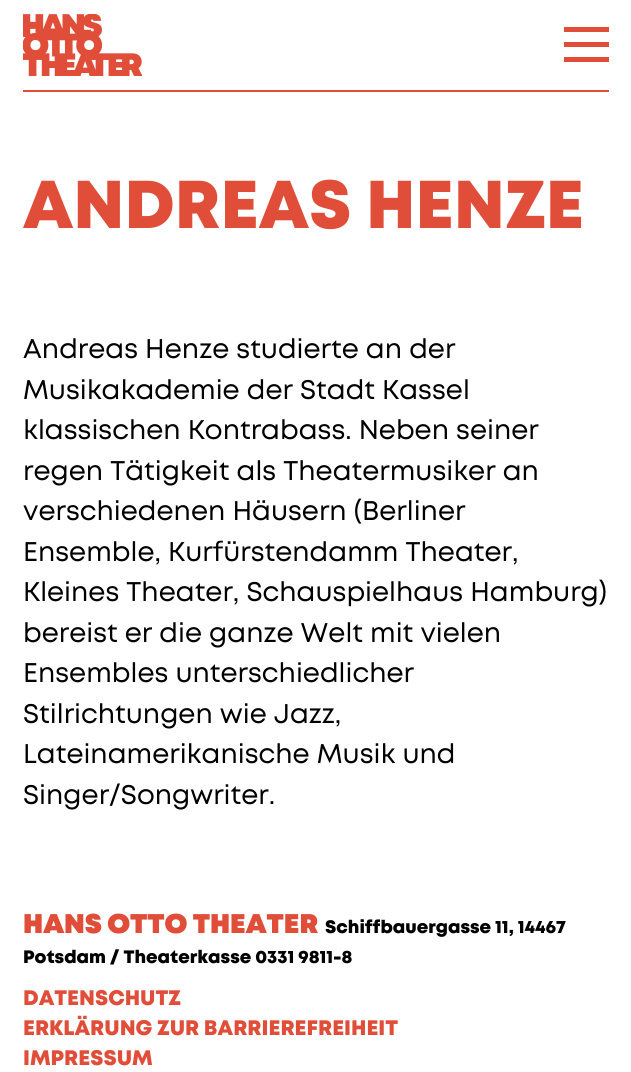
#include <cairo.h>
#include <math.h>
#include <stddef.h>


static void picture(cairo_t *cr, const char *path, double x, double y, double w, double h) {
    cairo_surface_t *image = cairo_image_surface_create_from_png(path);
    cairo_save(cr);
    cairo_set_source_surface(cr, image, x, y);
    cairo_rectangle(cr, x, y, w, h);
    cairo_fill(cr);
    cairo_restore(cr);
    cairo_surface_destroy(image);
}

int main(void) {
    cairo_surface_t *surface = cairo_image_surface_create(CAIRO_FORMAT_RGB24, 631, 1072);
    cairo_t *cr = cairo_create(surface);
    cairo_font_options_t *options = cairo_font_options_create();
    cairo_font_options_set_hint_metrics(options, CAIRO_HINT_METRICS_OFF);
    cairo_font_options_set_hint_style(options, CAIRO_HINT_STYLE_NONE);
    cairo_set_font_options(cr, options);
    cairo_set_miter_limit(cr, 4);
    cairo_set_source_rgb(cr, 1, 1, 1);
    cairo_paint(cr);
    cairo_set_source_rgb(cr, 0.878, 0.306, 0.224);
    cairo_rectangle(cr, 23, 90, 586, 2);
    cairo_fill(cr);
    picture(cr, "img1.png", 23, 14, 119, 62);
    cairo_rectangle(cr, 564, 27, 45, 5);
    cairo_fill(cr);
    cairo_rectangle(cr, 564, 42, 45, 5);
    cairo_fill(cr);
    cairo_rectangle(cr, 564, 57, 45, 5);
    cairo_fill(cr);
    cairo_select_font_face(cr, "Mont", CAIRO_FONT_SLANT_NORMAL, CAIRO_FONT_WEIGHT_NORMAL);
    cairo_set_font_size(cr, 67.5);
    cairo_move_to(cr, 23, 228);
    cairo_show_text(cr, "ANDREAS HENZE");
    cairo_select_font_face(cr, "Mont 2", CAIRO_FONT_SLANT_NORMAL, CAIRO_FONT_WEIGHT_NORMAL);
    cairo_set_font_size(cr, 27);
    cairo_set_source_rgb(cr, 0, 0, 0);
    cairo_move_to(cr, 23, 358);
    cairo_show_text(cr, "Andreas Henze studierte an der");
    cairo_move_to(cr, 23, 399);
    cairo_show_text(cr, "Musikakademie der Stadt Kassel");
    cairo_move_to(cr, 23, 439);
    cairo_show_text(cr, "klassischen Kontrabass. Neben seiner");
    cairo_move_to(cr, 23, 480);
    cairo_show_text(cr, "regen Tätigkeit als Theatermusiker an");
    cairo_move_to(cr, 23, 520);
    cairo_show_text(cr, "verschiedenen Häusern (Berliner");
    cairo_move_to(cr, 23, 561);
    cairo_show_text(cr, "Ensemble, Kurfürstendamm Theater,");
    cairo_move_to(cr, 23, 601);
    cairo_show_text(cr, "Kleines Theater, Schauspielhaus Hamburg)");
    cairo_move_to(cr, 23, 642);
    cairo_show_text(cr, "bereist er die ganze Welt mit vielen");
    cairo_move_to(cr, 23, 682);
    cairo_show_text(cr, "Ensembles unterschiedlicher");
    cairo_move_to(cr, 23, 723);
    cairo_show_text(cr, "Stilrichtungen wie Jazz,");
    cairo_move_to(cr, 23, 763);
    cairo_show_text(cr, "Lateinamerikanische Musik und");
    cairo_move_to(cr, 23, 804);
    cairo_show_text(cr, "Singer/Songwriter.");
    cairo_select_font_face(cr, "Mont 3", CAIRO_FONT_SLANT_NORMAL, CAIRO_FONT_WEIGHT_NORMAL);
    cairo_set_source_rgb(cr, 0.878, 0.306, 0.224);
    cairo_move_to(cr, 23, 933);
    cairo_show_text(cr, "HANS OTTO THEATER");
    cairo_select_font_face(cr, "Mont", CAIRO_FONT_SLANT_NORMAL, CAIRO_FONT_WEIGHT_NORMAL);
    cairo_set_font_size(cr, 18);
    cairo_set_source_rgb(cr, 0, 0, 0);
    cairo_move_to(cr, 325, 933);
    cairo_show_text(cr, "Schiffbauergasse 11, 14467");
    cairo_move_to(cr, 23, 963);
    cairo_show_text(cr, "Potsdam / Theaterkasse 0331 9811-8");
    cairo_set_font_size(cr, 21);
    cairo_set_source_rgb(cr, 0.878, 0.306, 0.224);
    cairo_move_to(cr, 23, 1005);
    cairo_show_text(cr, "DATENSCHUTZ");
    cairo_move_to(cr, 23, 1035);
    cairo_show_text(cr, "ERKLÄRUNG ZUR BARRIEREFREIHEIT");
    cairo_move_to(cr, 23, 1065);
    cairo_show_text(cr, "IMPRESSUM");
    cairo_surface_write_to_png(surface, "page.png");
    cairo_font_options_destroy(options);
    cairo_destroy(cr);
    cairo_surface_destroy(surface);
    return 0;
}
